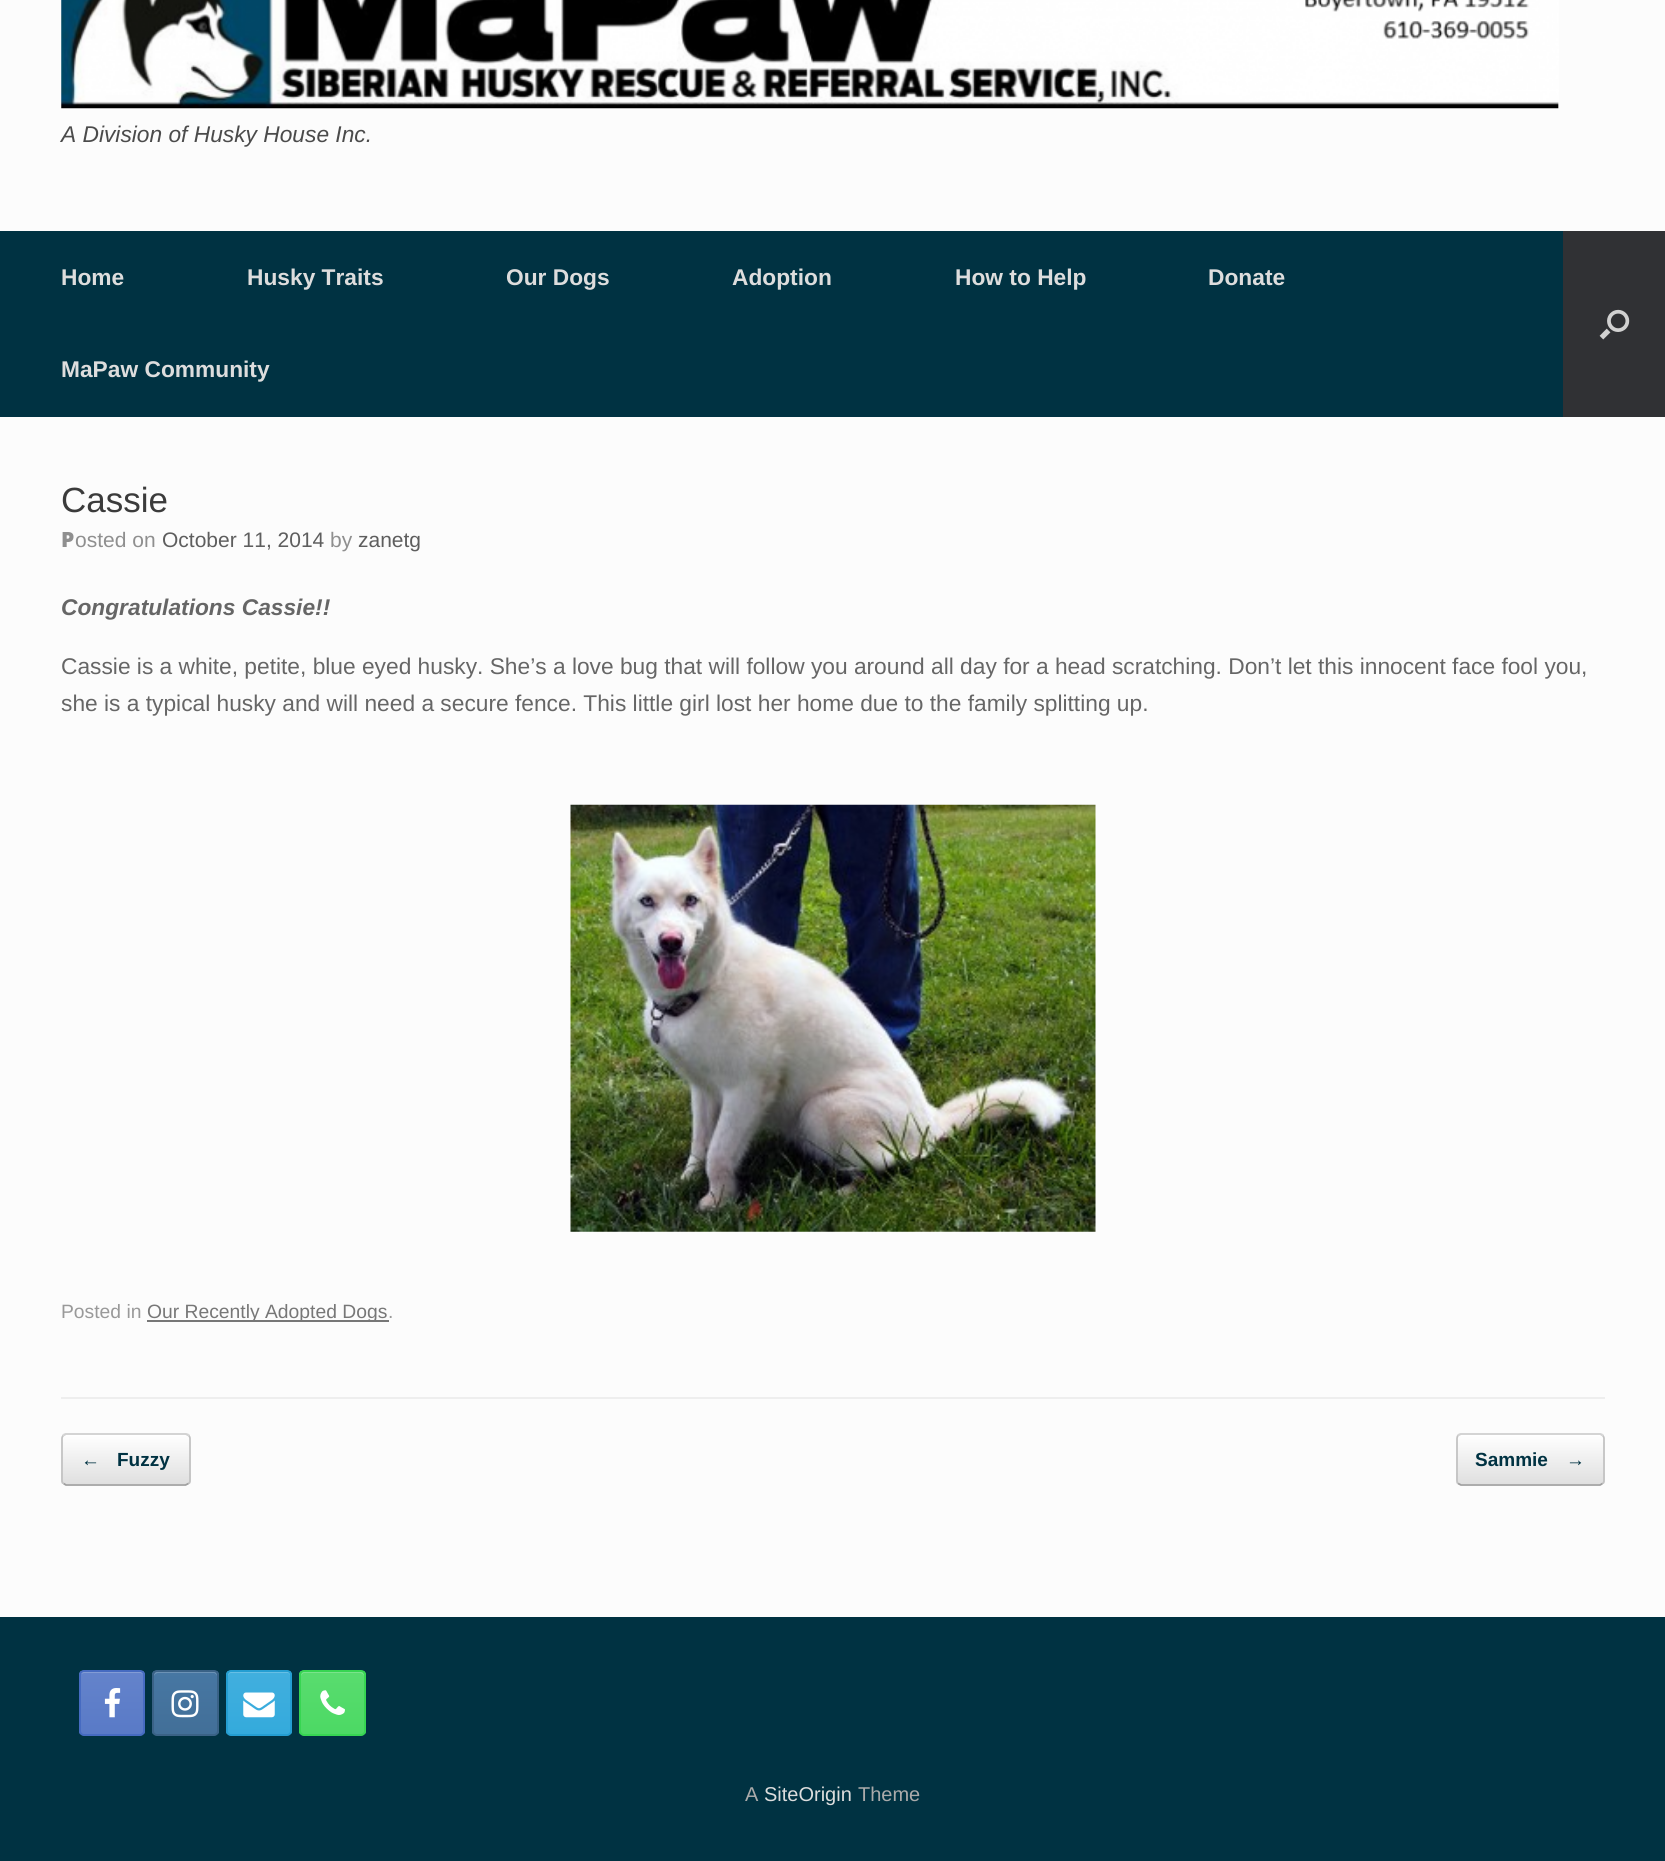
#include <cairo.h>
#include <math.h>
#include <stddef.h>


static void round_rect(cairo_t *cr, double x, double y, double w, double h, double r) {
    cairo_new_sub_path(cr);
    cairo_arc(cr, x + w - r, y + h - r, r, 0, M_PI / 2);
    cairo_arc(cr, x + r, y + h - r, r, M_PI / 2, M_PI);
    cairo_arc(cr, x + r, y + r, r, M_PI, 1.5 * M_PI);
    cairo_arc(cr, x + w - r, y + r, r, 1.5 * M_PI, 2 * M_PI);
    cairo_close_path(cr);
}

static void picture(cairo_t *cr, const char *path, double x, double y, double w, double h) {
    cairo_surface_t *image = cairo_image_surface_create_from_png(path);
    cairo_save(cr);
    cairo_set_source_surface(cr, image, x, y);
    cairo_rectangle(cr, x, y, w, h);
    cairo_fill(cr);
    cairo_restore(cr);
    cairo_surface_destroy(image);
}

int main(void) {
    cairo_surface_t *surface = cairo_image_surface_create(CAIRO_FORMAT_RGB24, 1665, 1861);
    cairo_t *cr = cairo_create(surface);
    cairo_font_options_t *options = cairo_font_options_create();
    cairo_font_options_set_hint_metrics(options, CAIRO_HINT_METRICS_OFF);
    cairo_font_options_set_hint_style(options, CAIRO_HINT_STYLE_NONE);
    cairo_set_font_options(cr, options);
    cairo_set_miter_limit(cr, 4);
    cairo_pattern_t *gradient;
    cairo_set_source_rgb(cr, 0, 0.196, 0.259);
    cairo_paint(cr);
    cairo_set_source_rgb(cr, 0.988, 0.988, 0.988);
    cairo_rectangle(cr, 0, 0, 1665, 231);
    cairo_fill(cr);
    picture(cr, "img1.png", 61, 0, 1498, 109);
    cairo_select_font_face(cr, "Liberation Sans", CAIRO_FONT_SLANT_ITALIC, CAIRO_FONT_WEIGHT_NORMAL);
    cairo_set_font_size(cr, 22.75);
    cairo_set_source_rgb(cr, 0.294, 0.294, 0.294);
    cairo_move_to(cr, 61, 142);
    cairo_show_text(cr, "A Division of Husky House Inc.");
    cairo_select_font_face(cr, "Liberation Sans", CAIRO_FONT_SLANT_NORMAL, CAIRO_FONT_WEIGHT_BOLD);
    cairo_set_source_rgb(cr, 0.867, 0.867, 0.867);
    cairo_move_to(cr, 61, 285);
    cairo_show_text(cr, "Home");
    cairo_move_to(cr, 247, 285);
    cairo_show_text(cr, "Husky Traits");
    cairo_move_to(cr, 506, 285);
    cairo_show_text(cr, "Our Dogs");
    cairo_move_to(cr, 732, 285);
    cairo_show_text(cr, "Adoption");
    cairo_move_to(cr, 955, 285);
    cairo_show_text(cr, "How to Help");
    cairo_move_to(cr, 1208, 285);
    cairo_show_text(cr, "Donate");
    cairo_move_to(cr, 61, 377);
    cairo_show_text(cr, "MaPaw Community");
    cairo_set_source_rgb(cr, 0.188, 0.192, 0.204);
    cairo_rectangle(cr, 1563, 231, 102, 186);
    cairo_fill(cr);
    picture(cr, "img2.png", 1599, 309, 31, 31);
    cairo_set_source_rgb(cr, 0.988, 0.988, 0.988);
    cairo_rectangle(cr, 0, 417, 1665, 1200);
    cairo_fill(cr);
    cairo_set_source_rgb(cr, 0.933, 0.933, 0.933);
    cairo_rectangle(cr, 61, 1397, 1544, 2);
    cairo_fill(cr);
    cairo_select_font_face(cr, "Liberation Sans", CAIRO_FONT_SLANT_NORMAL, CAIRO_FONT_WEIGHT_NORMAL);
    cairo_set_font_size(cr, 35);
    cairo_set_source_rgb(cr, 0.231, 0.231, 0.231);
    cairo_move_to(cr, 61, 512);
    cairo_show_text(cr, "Cassie");
    cairo_select_font_face(cr, "Noto Sans Black", CAIRO_FONT_SLANT_NORMAL, CAIRO_FONT_WEIGHT_NORMAL);
    cairo_set_font_size(cr, 21);
    cairo_set_source_rgb(cr, 0.561, 0.561, 0.561);
    cairo_move_to(cr, 61, 547);
    cairo_show_text(cr, "P");
    cairo_select_font_face(cr, "Liberation Sans", CAIRO_FONT_SLANT_NORMAL, CAIRO_FONT_WEIGHT_NORMAL);
    cairo_move_to(cr, 75, 547);
    cairo_show_text(cr, "osted on");
    cairo_set_source_rgb(cr, 0.369, 0.369, 0.369);
    cairo_move_to(cr, 162, 547);
    cairo_show_text(cr, "October 11, 2014");
    cairo_set_source_rgb(cr, 0.561, 0.561, 0.561);
    cairo_move_to(cr, 330, 547);
    cairo_show_text(cr, "by");
    cairo_set_source_rgb(cr, 0.369, 0.369, 0.369);
    cairo_move_to(cr, 358, 547);
    cairo_show_text(cr, "zanetg");
    cairo_select_font_face(cr, "Liberation Sans", CAIRO_FONT_SLANT_ITALIC, CAIRO_FONT_WEIGHT_BOLD);
    cairo_set_font_size(cr, 22.75);
    cairo_set_source_rgb(cr, 0.4, 0.4, 0.4);
    cairo_move_to(cr, 61, 615);
    cairo_show_text(cr, "Congratulations Cassie!!");
    cairo_select_font_face(cr, "Liberation Sans", CAIRO_FONT_SLANT_NORMAL, CAIRO_FONT_WEIGHT_NORMAL);
    cairo_move_to(cr, 61, 674);
    cairo_show_text(cr, "Cassie is a white, petite, blue eyed husky. She’s a love bug that will follow you around all day for a head scratching. Don’t let this innocent face fool you,");
    cairo_move_to(cr, 61, 711);
    cairo_show_text(cr, "she is a typical husky and will need a secure fence. This little girl lost her home due to the family splitting up.");
    picture(cr, "img3.png", 570, 804, 526, 428);
    cairo_set_font_size(cr, 19.3);
    cairo_set_source_rgb(cr, 0.6, 0.6, 0.6);
    cairo_move_to(cr, 61, 1318);
    cairo_show_text(cr, "Posted in");
    cairo_set_source_rgb(cr, 0.467, 0.467, 0.467);
    cairo_rectangle(cr, 147, 1320, 242, 2);
    cairo_fill(cr);
    cairo_move_to(cr, 147, 1318);
    cairo_show_text(cr, "Our Recently Adopted Dogs");
    cairo_set_source_rgb(cr, 0.6, 0.6, 0.6);
    cairo_move_to(cr, 388, 1318);
    cairo_show_text(cr, ".");
    cairo_save(cr);
    round_rect(cr, 61, 1433, 130, 53, 5);
    cairo_clip(cr);
    gradient = cairo_pattern_create_linear(63, 1435, 63, 1386);
    cairo_pattern_add_color_stop_rgba(gradient, 0, 0.875, 0.875, 0.875, 1);
    cairo_pattern_add_color_stop_rgba(gradient, 1, 1, 1, 1, 1);
    cairo_set_source(cr, gradient);
    cairo_pattern_destroy(gradient);
    cairo_rectangle(cr, 61, 1433, 130, 2);
    cairo_fill(cr);
    gradient = cairo_pattern_create_linear(63, 1484, 63, 1435);
    cairo_pattern_add_color_stop_rgba(gradient, 0, 0.875, 0.875, 0.875, 1);
    cairo_pattern_add_color_stop_rgba(gradient, 1, 1, 1, 1, 1);
    cairo_set_source(cr, gradient);
    cairo_pattern_destroy(gradient);
    cairo_rectangle(cr, 61, 1435, 130, 49);
    cairo_fill(cr);
    gradient = cairo_pattern_create_linear(63, 1533, 63, 1484);
    cairo_pattern_add_color_stop_rgba(gradient, 0, 0.875, 0.875, 0.875, 1);
    cairo_pattern_add_color_stop_rgba(gradient, 1, 1, 1, 1, 1);
    cairo_set_source(cr, gradient);
    cairo_pattern_destroy(gradient);
    cairo_rectangle(cr, 61, 1484, 130, 2);
    cairo_fill(cr);
    cairo_restore(cr);
    cairo_new_path(cr);
    cairo_move_to(cr, 63.5, 1435.5);
    cairo_line_to(cr, 66, 1434);
    cairo_line_to(cr, 165.5, 1434);
    cairo_line_to(cr, 185.5, 1434);
    cairo_line_to(cr, 188.5, 1435.5);
    cairo_set_source_rgb(cr, 0.824, 0.824, 0.824);
    cairo_set_line_width(cr, 1.8);
    cairo_stroke(cr);
    cairo_new_path(cr);
    cairo_move_to(cr, 188.5, 1435.5);
    cairo_curve_to(cr, 189.5, 1436, 190, 1437.5, 190, 1438.5);
    cairo_line_to(cr, 190, 1480.5);
    cairo_curve_to(cr, 190, 1481.5, 189.5, 1483, 188.5, 1483.5);
    cairo_set_source_rgb(cr, 0.765, 0.765, 0.765);
    cairo_stroke(cr);
    cairo_new_path(cr);
    cairo_move_to(cr, 188.5, 1483.5);
    cairo_line_to(cr, 185.5, 1485);
    cairo_line_to(cr, 66, 1485);
    cairo_line_to(cr, 63.5, 1483.5);
    cairo_set_source_rgb(cr, 0.624, 0.624, 0.624);
    cairo_stroke(cr);
    cairo_new_path(cr);
    cairo_move_to(cr, 63.5, 1483.5);
    cairo_curve_to(cr, 62.5, 1483, 62, 1481.5, 62, 1480.5);
    cairo_line_to(cr, 62, 1438.5);
    cairo_curve_to(cr, 62, 1437.5, 62.5, 1436, 63.5, 1435.5);
    cairo_set_source_rgb(cr, 0.765, 0.765, 0.765);
    cairo_stroke(cr);
    cairo_select_font_face(cr, "Liberation Sans", CAIRO_FONT_SLANT_NORMAL, CAIRO_FONT_WEIGHT_BOLD);
    cairo_set_font_size(cr, 19);
    cairo_set_source_rgb(cr, 0, 0.196, 0.259);
    cairo_move_to(cr, 81, 1466);
    cairo_show_text(cr, "←");
    cairo_move_to(cr, 117, 1466);
    cairo_show_text(cr, "Fuzzy");
    cairo_save(cr);
    round_rect(cr, 1456, 1433, 149, 53, 5);
    cairo_clip(cr);
    gradient = cairo_pattern_create_linear(1458, 1435, 1458, 1386);
    cairo_pattern_add_color_stop_rgba(gradient, 0, 0.875, 0.875, 0.875, 1);
    cairo_pattern_add_color_stop_rgba(gradient, 1, 1, 1, 1, 1);
    cairo_set_source(cr, gradient);
    cairo_pattern_destroy(gradient);
    cairo_rectangle(cr, 1456, 1433, 149, 2);
    cairo_fill(cr);
    gradient = cairo_pattern_create_linear(1458, 1484, 1458, 1435);
    cairo_pattern_add_color_stop_rgba(gradient, 0, 0.875, 0.875, 0.875, 1);
    cairo_pattern_add_color_stop_rgba(gradient, 1, 1, 1, 1, 1);
    cairo_set_source(cr, gradient);
    cairo_pattern_destroy(gradient);
    cairo_rectangle(cr, 1456, 1435, 149, 49);
    cairo_fill(cr);
    gradient = cairo_pattern_create_linear(1458, 1533, 1458, 1484);
    cairo_pattern_add_color_stop_rgba(gradient, 0, 0.875, 0.875, 0.875, 1);
    cairo_pattern_add_color_stop_rgba(gradient, 1, 1, 1, 1, 1);
    cairo_set_source(cr, gradient);
    cairo_pattern_destroy(gradient);
    cairo_rectangle(cr, 1456, 1484, 149, 2);
    cairo_fill(cr);
    cairo_restore(cr);
    cairo_new_path(cr);
    cairo_move_to(cr, 1458, 1435.5);
    cairo_line_to(cr, 1461, 1434);
    cairo_line_to(cr, 1600, 1434);
    cairo_line_to(cr, 1602.5, 1435.5);
    cairo_set_source_rgb(cr, 0.824, 0.824, 0.824);
    cairo_stroke(cr);
    cairo_new_path(cr);
    cairo_move_to(cr, 1602.5, 1435.5);
    cairo_curve_to(cr, 1603.5, 1436, 1604, 1437.5, 1604, 1438.5);
    cairo_line_to(cr, 1604, 1480.5);
    cairo_curve_to(cr, 1604, 1481.5, 1603.5, 1483, 1602.5, 1483.5);
    cairo_set_source_rgb(cr, 0.765, 0.765, 0.765);
    cairo_stroke(cr);
    cairo_new_path(cr);
    cairo_move_to(cr, 1602.5, 1483.5);
    cairo_line_to(cr, 1600, 1485);
    cairo_line_to(cr, 1484.5, 1485);
    cairo_line_to(cr, 1461, 1485);
    cairo_line_to(cr, 1458, 1483.5);
    cairo_set_source_rgb(cr, 0.624, 0.624, 0.624);
    cairo_stroke(cr);
    cairo_new_path(cr);
    cairo_move_to(cr, 1458, 1483.5);
    cairo_curve_to(cr, 1457.5, 1483, 1457, 1481.5, 1457, 1480.5);
    cairo_line_to(cr, 1457, 1438.5);
    cairo_curve_to(cr, 1457, 1437.5, 1457.5, 1436, 1458, 1435.5);
    cairo_set_source_rgb(cr, 0.765, 0.765, 0.765);
    cairo_stroke(cr);
    cairo_set_source_rgb(cr, 0, 0.196, 0.259);
    cairo_move_to(cr, 1475, 1466);
    cairo_show_text(cr, "Sammie");
    cairo_move_to(cr, 1566, 1466);
    cairo_show_text(cr, "→");
    cairo_save(cr);
    round_rect(cr, 79, 1670, 66, 66, 5);
    cairo_clip(cr);
    gradient = cairo_pattern_create_linear(81, 1734, 81, 1671);
    cairo_pattern_add_color_stop_rgba(gradient, 0, 0.349, 0.478, 0.78, 1);
    cairo_pattern_add_color_stop_rgba(gradient, 1, 0.392, 0.514, 0.796, 1);
    cairo_set_source(cr, gradient);
    cairo_pattern_destroy(gradient);
    cairo_rectangle(cr, 79, 1671, 66, 63);
    cairo_fill(cr);
    cairo_restore(cr);
    cairo_set_source_rgb(cr, 0.514, 0.612, 0.835);
    cairo_new_path(cr);
    cairo_move_to(cr, 84, 1673);
    cairo_line_to(cr, 140, 1673);
    cairo_curve_to(cr, 142, 1673, 144, 1675, 144, 1676);
    cairo_line_to(cr, 144, 1675);
    cairo_curve_to(cr, 144, 1673, 142, 1671, 140, 1671);
    cairo_line_to(cr, 85, 1671);
    cairo_curve_to(cr, 83, 1671, 81, 1672, 81, 1674);
    cairo_close_path(cr);
    cairo_fill(cr);
    round_rect(cr, 80, 1671, 64, 64, 4);
    cairo_set_source_rgb(cr, 0.275, 0.42, 0.757);
    cairo_set_line_width(cr, 2);
    cairo_stroke(cr);
    picture(cr, "img4.png", 104, 1688, 17, 30);
    cairo_save(cr);
    round_rect(cr, 152, 1670, 67, 66, 5);
    cairo_clip(cr);
    gradient = cairo_pattern_create_linear(154, 1734, 154, 1671);
    cairo_pattern_add_color_stop_rgba(gradient, 0, 0.259, 0.435, 0.596, 1);
    cairo_pattern_add_color_stop_rgba(gradient, 1, 0.278, 0.467, 0.639, 1);
    cairo_set_source(cr, gradient);
    cairo_pattern_destroy(gradient);
    cairo_rectangle(cr, 152, 1671, 67, 63);
    cairo_fill(cr);
    cairo_restore(cr);
    cairo_set_source_rgb(cr, 0.424, 0.573, 0.71);
    cairo_new_path(cr);
    cairo_move_to(cr, 158, 1673);
    cairo_line_to(cr, 214, 1673);
    cairo_curve_to(cr, 215, 1673, 217, 1675, 217, 1676);
    cairo_curve_to(cr, 217, 1669, 209, 1671, 204, 1671);
    cairo_line_to(cr, 167, 1671);
    cairo_curve_to(cr, 162, 1671, 154, 1669, 154, 1676);
    cairo_curve_to(cr, 154, 1675, 156, 1673, 158, 1673);
    cairo_close_path(cr);
    cairo_fill(cr);
    round_rect(cr, 153, 1671, 65, 64, 4);
    cairo_set_source_rgb(cr, 0.227, 0.384, 0.525);
    cairo_stroke(cr);
    picture(cr, "img5.png", 171, 1690, 28, 28);
    cairo_save(cr);
    round_rect(cr, 226, 1670, 66, 66, 5);
    cairo_clip(cr);
    gradient = cairo_pattern_create_linear(228, 1734, 228, 1671);
    cairo_pattern_add_color_stop_rgba(gradient, 0, 0.204, 0.667, 0.863, 1);
    cairo_pattern_add_color_stop_rgba(gradient, 1, 0.255, 0.686, 0.871, 1);
    cairo_set_source(cr, gradient);
    cairo_pattern_destroy(gradient);
    cairo_rectangle(cr, 226, 1671, 66, 63);
    cairo_fill(cr);
    cairo_restore(cr);
    cairo_set_source_rgba(cr, 1, 1, 1, 0.2);
    cairo_new_path(cr);
    cairo_move_to(cr, 231, 1673);
    cairo_line_to(cr, 288, 1673);
    cairo_curve_to(cr, 292, 1674, 290, 1685, 290, 1685);
    cairo_line_to(cr, 290, 1733);
    cairo_curve_to(cr, 291, 1732, 291, 1731, 291, 1730);
    cairo_line_to(cr, 291, 1675);
    cairo_curve_to(cr, 291, 1673, 289, 1671, 287, 1671);
    cairo_line_to(cr, 232, 1671);
    cairo_curve_to(cr, 230, 1671, 228, 1673, 228, 1675);
    cairo_line_to(cr, 228, 1676);
    cairo_curve_to(cr, 228, 1675, 229, 1673, 231, 1673);
    cairo_close_path(cr);
    cairo_fill(cr);
    round_rect(cr, 227, 1671, 64, 64, 4);
    cairo_set_source_rgb(cr, 0.141, 0.62, 0.824);
    cairo_stroke(cr);
    picture(cr, "img6.png", 243, 1692, 32, 26);
    cairo_save(cr);
    round_rect(cr, 299, 1670, 67, 66, 5);
    cairo_clip(cr);
    gradient = cairo_pattern_create_linear(301, 1734, 301, 1671);
    cairo_pattern_add_color_stop_rgba(gradient, 0, 0.298, 0.851, 0.392, 1);
    cairo_pattern_add_color_stop_rgba(gradient, 1, 0.349, 0.863, 0.435, 1);
    cairo_set_source(cr, gradient);
    cairo_pattern_destroy(gradient);
    cairo_rectangle(cr, 299, 1671, 67, 63);
    cairo_fill(cr);
    cairo_restore(cr);
    cairo_set_source_rgb(cr, 0.478, 0.89, 0.549);
    cairo_new_path(cr);
    cairo_move_to(cr, 304, 1673);
    cairo_line_to(cr, 360, 1673);
    cairo_curve_to(cr, 362, 1673, 364, 1675, 364, 1676);
    cairo_curve_to(cr, 364, 1669, 356, 1671, 351, 1671);
    cairo_line_to(cr, 314, 1671);
    cairo_curve_to(cr, 309, 1671, 301, 1669, 301, 1676);
    cairo_curve_to(cr, 301, 1675, 303, 1673, 304, 1673);
    cairo_close_path(cr);
    cairo_fill(cr);
    round_rect(cr, 300, 1671, 65, 64, 4);
    cairo_set_source_rgb(cr, 0.216, 0.835, 0.322);
    cairo_stroke(cr);
    picture(cr, "img7.png", 320, 1690, 25, 25);
    cairo_select_font_face(cr, "Liberation Sans", CAIRO_FONT_SLANT_NORMAL, CAIRO_FONT_WEIGHT_NORMAL);
    cairo_set_font_size(cr, 20);
    cairo_set_source_rgb(cr, 0.667, 0.667, 0.667);
    cairo_move_to(cr, 745, 1801);
    cairo_show_text(cr, "A");
    cairo_set_source_rgb(cr, 0.867, 0.867, 0.867);
    cairo_move_to(cr, 764, 1801);
    cairo_show_text(cr, "SiteOrigin");
    cairo_set_source_rgb(cr, 0.667, 0.667, 0.667);
    cairo_move_to(cr, 858, 1801);
    cairo_show_text(cr, "Theme");
    cairo_surface_write_to_png(surface, "page.png");
    cairo_font_options_destroy(options);
    cairo_destroy(cr);
    cairo_surface_destroy(surface);
    return 0;
}
